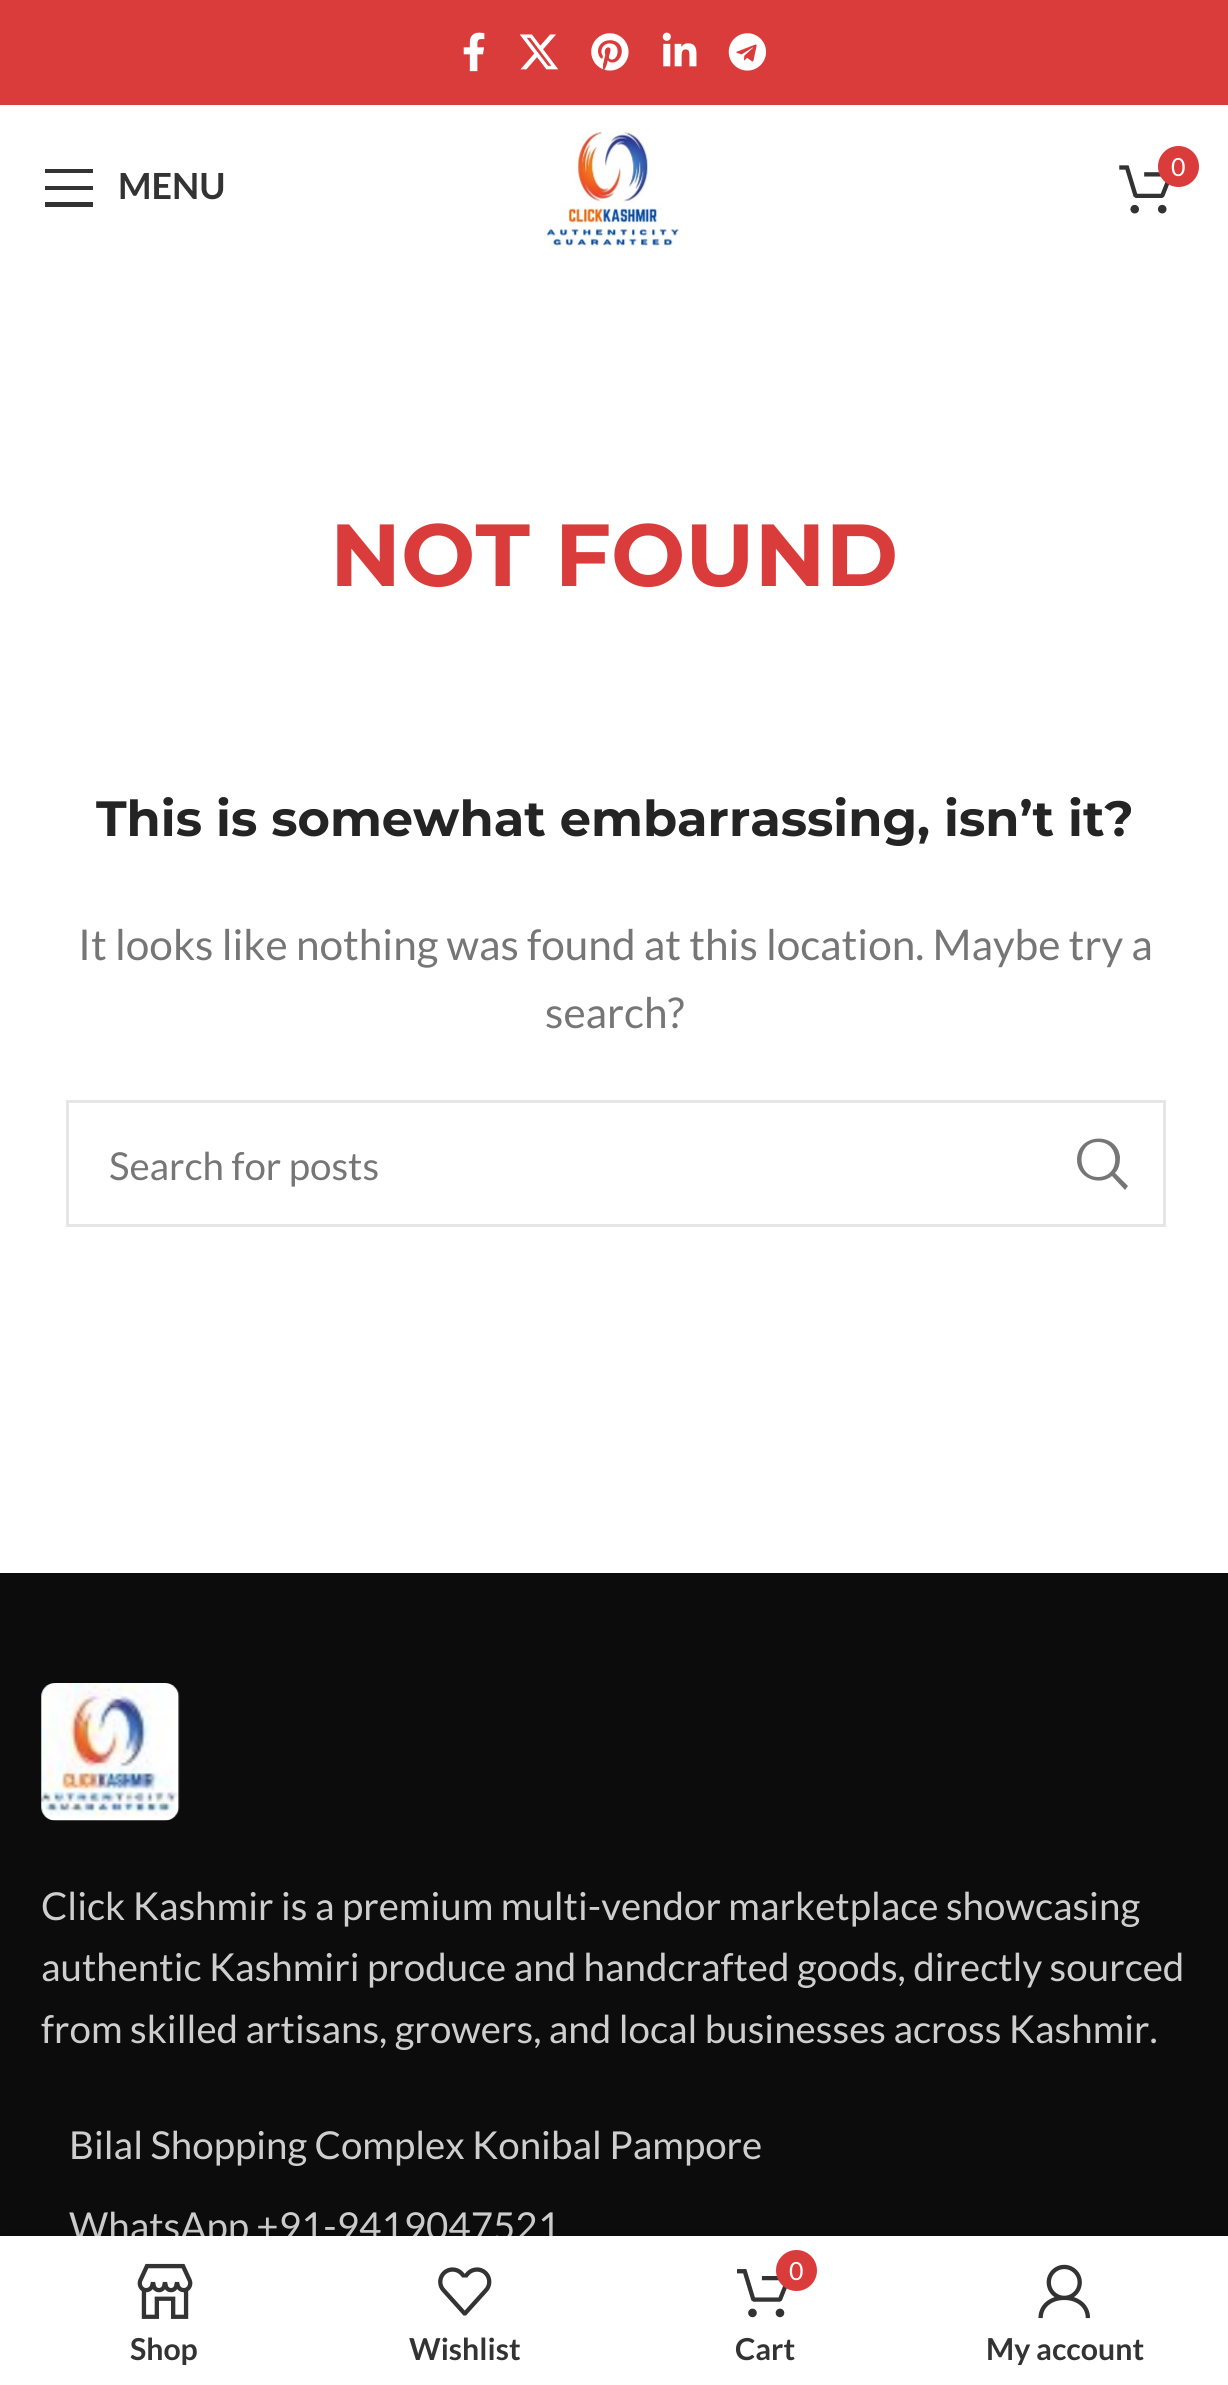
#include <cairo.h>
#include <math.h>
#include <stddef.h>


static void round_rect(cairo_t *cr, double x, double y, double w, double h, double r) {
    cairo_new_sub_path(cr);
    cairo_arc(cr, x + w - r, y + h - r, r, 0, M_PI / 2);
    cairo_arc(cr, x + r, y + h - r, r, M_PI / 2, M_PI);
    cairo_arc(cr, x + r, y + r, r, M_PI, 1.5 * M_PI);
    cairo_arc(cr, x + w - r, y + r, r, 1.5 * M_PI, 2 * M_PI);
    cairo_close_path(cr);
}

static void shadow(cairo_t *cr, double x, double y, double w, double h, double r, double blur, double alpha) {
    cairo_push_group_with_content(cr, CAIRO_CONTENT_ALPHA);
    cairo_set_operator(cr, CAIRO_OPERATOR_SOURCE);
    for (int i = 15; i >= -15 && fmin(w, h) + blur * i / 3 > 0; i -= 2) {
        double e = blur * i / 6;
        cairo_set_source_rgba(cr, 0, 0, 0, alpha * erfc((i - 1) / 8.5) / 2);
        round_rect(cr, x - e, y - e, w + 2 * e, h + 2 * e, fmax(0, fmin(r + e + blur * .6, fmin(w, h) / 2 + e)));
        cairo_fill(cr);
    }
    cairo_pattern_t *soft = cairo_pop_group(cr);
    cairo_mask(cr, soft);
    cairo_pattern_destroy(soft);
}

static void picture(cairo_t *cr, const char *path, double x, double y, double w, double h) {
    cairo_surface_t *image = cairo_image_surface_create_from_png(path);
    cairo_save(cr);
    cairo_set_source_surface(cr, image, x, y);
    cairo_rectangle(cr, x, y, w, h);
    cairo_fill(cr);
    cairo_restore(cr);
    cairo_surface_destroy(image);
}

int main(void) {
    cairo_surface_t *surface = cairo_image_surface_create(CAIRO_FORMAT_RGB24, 1228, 2385);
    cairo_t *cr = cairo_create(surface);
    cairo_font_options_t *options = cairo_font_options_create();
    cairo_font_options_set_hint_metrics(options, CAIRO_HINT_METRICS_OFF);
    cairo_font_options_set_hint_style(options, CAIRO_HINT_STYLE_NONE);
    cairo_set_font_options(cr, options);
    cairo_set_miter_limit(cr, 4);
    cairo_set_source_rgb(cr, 1, 1, 1);
    cairo_paint(cr);
    cairo_set_source_rgb(cr, 0.855, 0.235, 0.235);
    cairo_rectangle(cr, 0, 0, 1228, 105);
    cairo_fill(cr);
    picture(cr, "img1.png", 463, 32, 22, 40);
    picture(cr, "img2.png", 519, 34, 40, 36);
    picture(cr, "img3.png", 591, 33, 38, 38);
    picture(cr, "img4.png", 662, 32, 35, 35);
    picture(cr, "img5.png", 728, 33, 39, 38);
    picture(cr, "img6.png", 544, 128, 136, 120);
    picture(cr, "img7.png", 1119, 165, 51, 49);
    cairo_arc(cr, 1178.5, 166.5, 20.5, 0, 2 * M_PI);
    cairo_fill(cr);
    cairo_select_font_face(cr, "Lato", CAIRO_FONT_SLANT_NORMAL, CAIRO_FONT_WEIGHT_NORMAL);
    cairo_set_font_size(cr, 25);
    cairo_set_source_rgb(cr, 1, 1, 1);
    cairo_move_to(cr, 1171, 176);
    cairo_show_text(cr, "0");
    cairo_set_source_rgb(cr, 0.2, 0.2, 0.2);
    cairo_new_path(cr);
    cairo_move_to(cr, 45, 173);
    cairo_line_to(cr, 93, 173);
    cairo_line_to(cr, 93, 169);
    cairo_line_to(cr, 45, 169);
    cairo_close_path(cr);
    cairo_move_to(cr, 45, 190);
    cairo_line_to(cr, 93, 190);
    cairo_line_to(cr, 93, 186);
    cairo_line_to(cr, 45, 186);
    cairo_close_path(cr);
    cairo_move_to(cr, 45, 207);
    cairo_line_to(cr, 93, 207);
    cairo_line_to(cr, 93, 202);
    cairo_line_to(cr, 45, 202);
    cairo_close_path(cr);
    cairo_fill(cr);
    cairo_select_font_face(cr, "Lato", CAIRO_FONT_SLANT_NORMAL, CAIRO_FONT_WEIGHT_BOLD);
    cairo_set_font_size(cr, 36);
    cairo_move_to(cr, 118, 199);
    cairo_show_text(cr, "MENU");
    cairo_select_font_face(cr, "Montserrat", CAIRO_FONT_SLANT_NORMAL, CAIRO_FONT_WEIGHT_BOLD);
    cairo_set_font_size(cr, 88);
    cairo_set_source_rgb(cr, 0.855, 0.235, 0.235);
    cairo_move_to(cr, 330, 586);
    cairo_show_text(cr, "NOT FOUND");
    cairo_set_font_size(cr, 49.5);
    cairo_set_source_rgb(cr, 0.141, 0.141, 0.141);
    cairo_move_to(cr, 96, 836);
    cairo_show_text(cr, "This is somewhat embarrassing, isn’t it?");
    cairo_select_font_face(cr, "Lato", CAIRO_FONT_SLANT_NORMAL, CAIRO_FONT_WEIGHT_NORMAL);
    cairo_set_font_size(cr, 42.35);
    cairo_set_source_rgb(cr, 0.463, 0.463, 0.463);
    cairo_move_to(cr, 78, 960);
    cairo_show_text(cr, "It looks like nothing was found at this location. Maybe try a");
    cairo_move_to(cr, 545, 1028);
    cairo_show_text(cr, "search?");
    cairo_rectangle(cr, 67.5, 1101.5, 1097, 124);
    cairo_set_source_rgb(cr, 0.902, 0.902, 0.902);
    cairo_set_line_width(cr, 3);
    cairo_stroke(cr);
    cairo_set_font_size(cr, 38.5);
    cairo_set_source_rgb(cr, 0.463, 0.463, 0.463);
    cairo_move_to(cr, 109, 1180);
    cairo_show_text(cr, "Search for posts");
    cairo_new_path(cr);
    cairo_move_to(cr, 1077, 1160);
    cairo_curve_to(cr, 1077, 1177, 1098, 1187, 1112, 1176);
    cairo_line_to(cr, 1125, 1190);
    cairo_line_to(cr, 1128, 1186);
    cairo_line_to(cr, 1115, 1173);
    cairo_curve_to(cr, 1119, 1169, 1120, 1163, 1120, 1157);
    cairo_curve_to(cr, 1117, 1131, 1077, 1133, 1077, 1160);
    cairo_close_path(cr);
    cairo_move_to(cr, 1098, 1177);
    cairo_curve_to(cr, 1076, 1177, 1076, 1142, 1098, 1142);
    cairo_curve_to(cr, 1121, 1142, 1121, 1177, 1098, 1177);
    cairo_close_path(cr);
    cairo_fill(cr);
    cairo_set_source_rgb(cr, 0.047, 0.047, 0.047);
    cairo_rectangle(cr, 0, 1573, 1228, 663);
    cairo_fill(cr);
    picture(cr, "img8.png", 41, 1683, 139, 138);
    cairo_set_source_rgb(cr, 0.808, 0.808, 0.808);
    cairo_move_to(cr, 41, 1920);
    cairo_show_text(cr, "Click Kashmir is a premium multi-vendor marketplace showcasing");
    cairo_move_to(cr, 41, 1981);
    cairo_show_text(cr, "authentic Kashmiri produce and handcrafted goods, directly sourced");
    cairo_move_to(cr, 41, 2043);
    cairo_show_text(cr, "from skilled artisans, growers, and local businesses across Kashmir.");
    cairo_move_to(cr, 69, 2159);
    cairo_show_text(cr, "Bilal Shopping Complex Konibal Pampore");
    cairo_move_to(cr, 69, 2240);
    cairo_show_text(cr, "WhatsApp +91-9419047521");
    cairo_set_source_rgb(cr, 0, 0, 0);
    shadow(cr, 0, 2236, 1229, 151, 0, 12.5, 0.12);
    cairo_set_source_rgb(cr, 1, 1, 1);
    cairo_rectangle(cr, 0, 2236, 1228, 149);
    cairo_fill(cr);
    picture(cr, "img9.png", 137, 2263, 56, 56);
    cairo_save(cr);
    cairo_rectangle(cr, 41, 2329, 245, 36);
    cairo_clip(cr);
    cairo_select_font_face(cr, "Lato", CAIRO_FONT_SLANT_NORMAL, CAIRO_FONT_WEIGHT_BOLD);
    cairo_set_font_size(cr, 30.25);
    cairo_set_source_rgb(cr, 0.2, 0.2, 0.2);
    cairo_move_to(cr, 130, 2360);
    cairo_show_text(cr, "Shop");
    cairo_restore(cr);
    picture(cr, "img10.png", 438, 2267, 54, 49);
    cairo_select_font_face(cr, "Lato", CAIRO_FONT_SLANT_NORMAL, CAIRO_FONT_WEIGHT_BOLD);
    cairo_set_font_size(cr, 30.25);
    cairo_set_source_rgb(cr, 0.2, 0.2, 0.2);
    cairo_move_to(cr, 409, 2360);
    cairo_show_text(cr, "Wishlist");
    picture(cr, "img11.png", 737, 2269, 50, 49);
    cairo_set_source_rgb(cr, 0.855, 0.235, 0.235);
    cairo_arc(cr, 796.5, 2270.5, 20.5, 0, 2 * M_PI);
    cairo_fill(cr);
    cairo_select_font_face(cr, "Lato", CAIRO_FONT_SLANT_NORMAL, CAIRO_FONT_WEIGHT_NORMAL);
    cairo_set_font_size(cr, 25);
    cairo_set_source_rgb(cr, 1, 1, 1);
    cairo_move_to(cr, 789, 2280);
    cairo_show_text(cr, "0");
    cairo_select_font_face(cr, "Lato", CAIRO_FONT_SLANT_NORMAL, CAIRO_FONT_WEIGHT_BOLD);
    cairo_set_font_size(cr, 30.25);
    cairo_set_source_rgb(cr, 0.2, 0.2, 0.2);
    cairo_move_to(cr, 735, 2360);
    cairo_show_text(cr, "Cart");
    picture(cr, "img12.png", 1038, 2264, 52, 55);
    cairo_move_to(cr, 986, 2360);
    cairo_show_text(cr, "My account");
    cairo_surface_write_to_png(surface, "page.png");
    cairo_font_options_destroy(options);
    cairo_destroy(cr);
    cairo_surface_destroy(surface);
    return 0;
}
